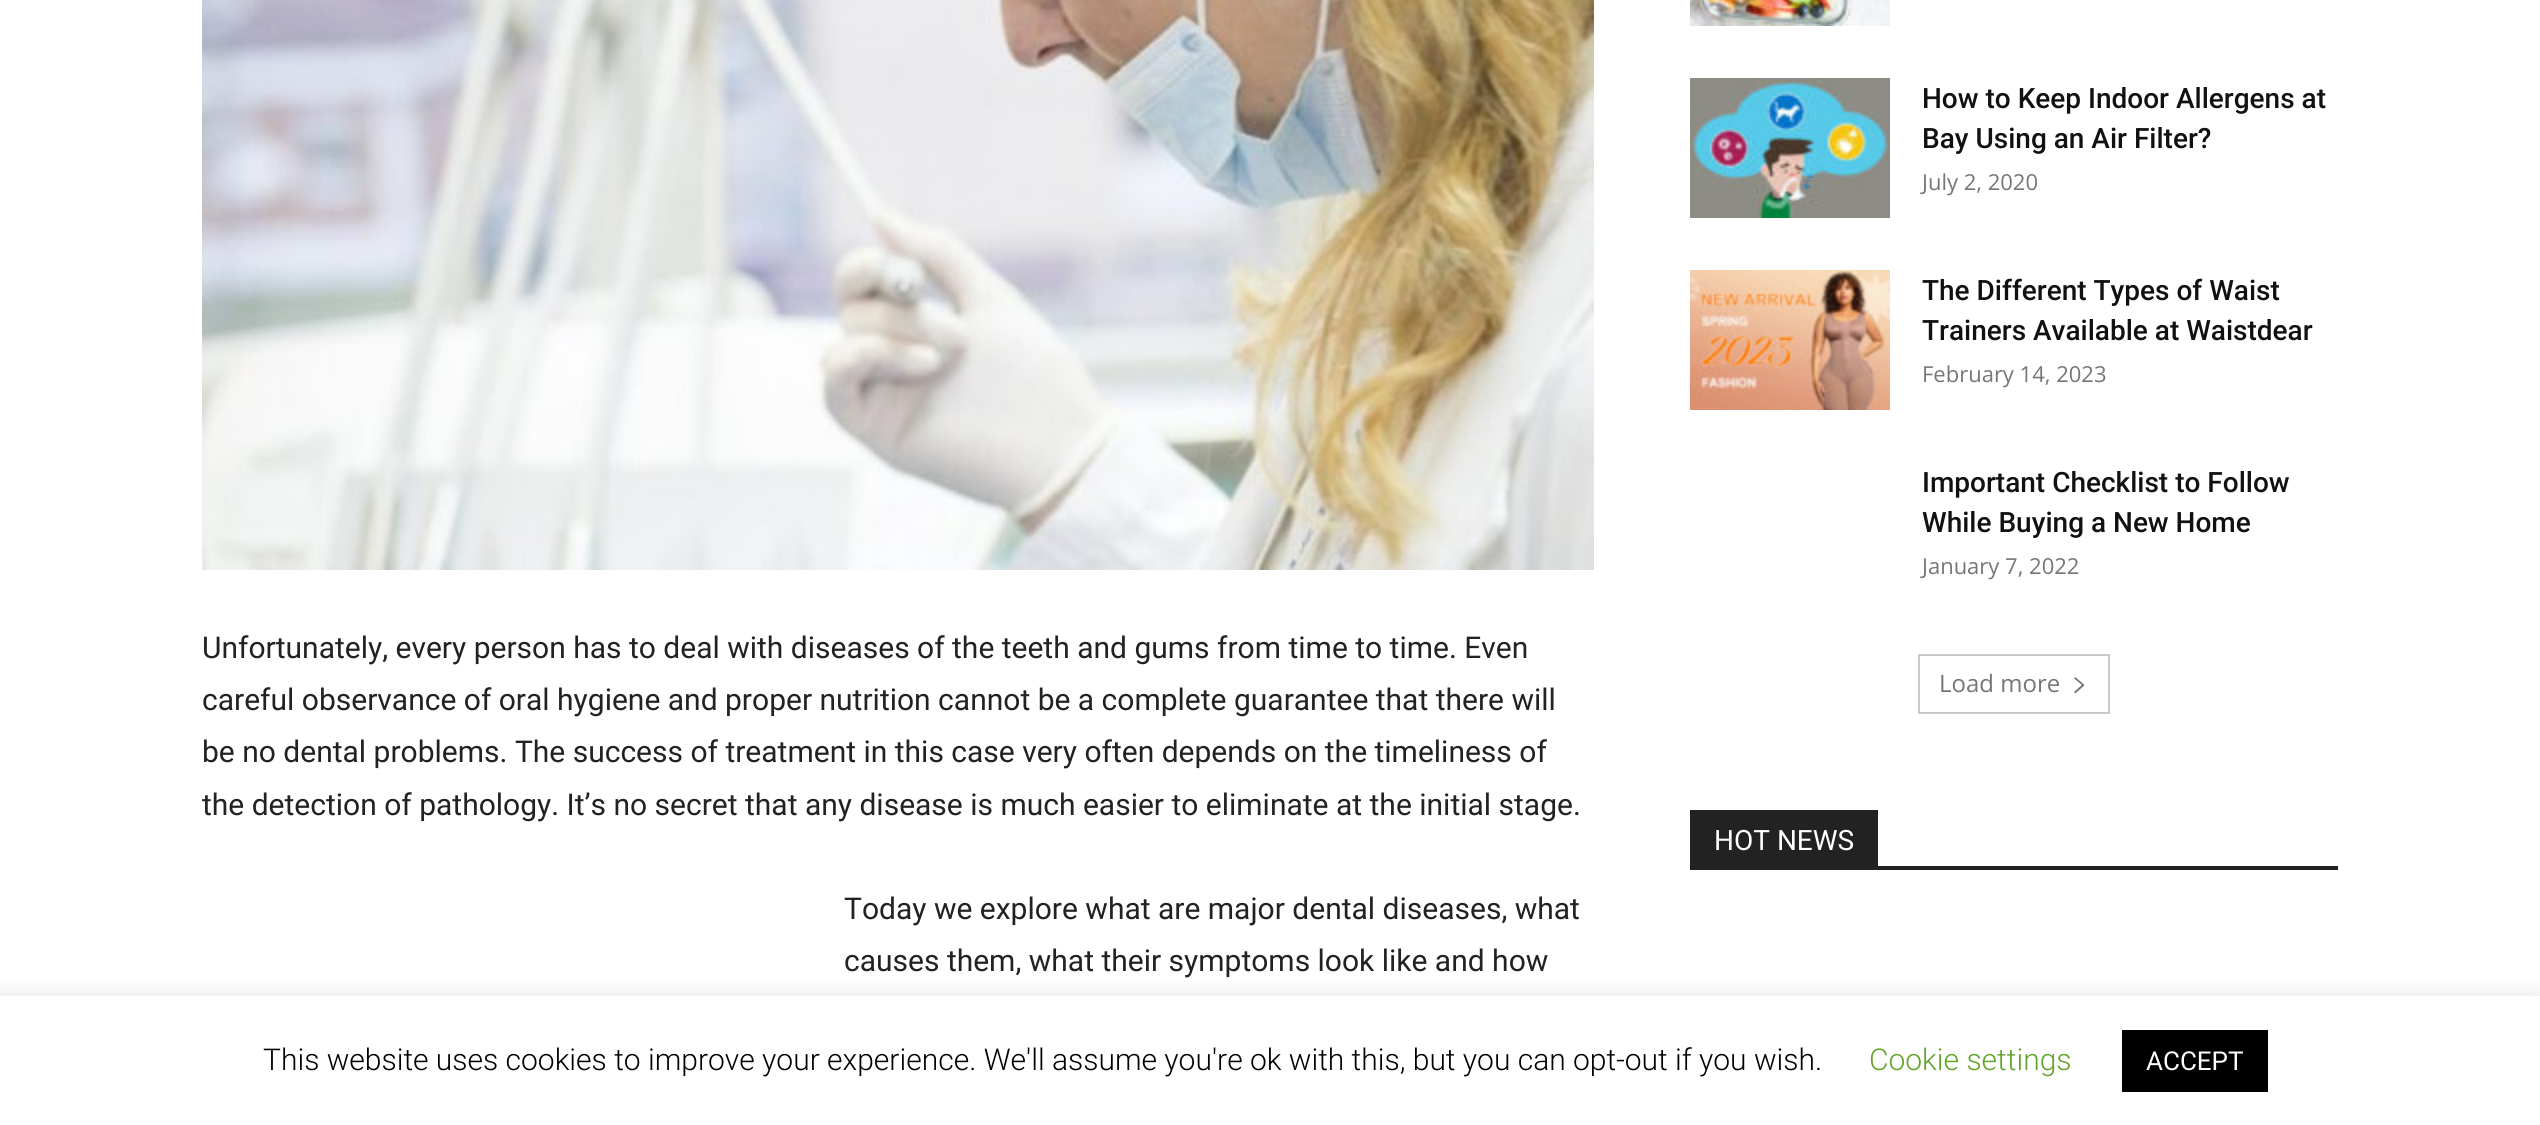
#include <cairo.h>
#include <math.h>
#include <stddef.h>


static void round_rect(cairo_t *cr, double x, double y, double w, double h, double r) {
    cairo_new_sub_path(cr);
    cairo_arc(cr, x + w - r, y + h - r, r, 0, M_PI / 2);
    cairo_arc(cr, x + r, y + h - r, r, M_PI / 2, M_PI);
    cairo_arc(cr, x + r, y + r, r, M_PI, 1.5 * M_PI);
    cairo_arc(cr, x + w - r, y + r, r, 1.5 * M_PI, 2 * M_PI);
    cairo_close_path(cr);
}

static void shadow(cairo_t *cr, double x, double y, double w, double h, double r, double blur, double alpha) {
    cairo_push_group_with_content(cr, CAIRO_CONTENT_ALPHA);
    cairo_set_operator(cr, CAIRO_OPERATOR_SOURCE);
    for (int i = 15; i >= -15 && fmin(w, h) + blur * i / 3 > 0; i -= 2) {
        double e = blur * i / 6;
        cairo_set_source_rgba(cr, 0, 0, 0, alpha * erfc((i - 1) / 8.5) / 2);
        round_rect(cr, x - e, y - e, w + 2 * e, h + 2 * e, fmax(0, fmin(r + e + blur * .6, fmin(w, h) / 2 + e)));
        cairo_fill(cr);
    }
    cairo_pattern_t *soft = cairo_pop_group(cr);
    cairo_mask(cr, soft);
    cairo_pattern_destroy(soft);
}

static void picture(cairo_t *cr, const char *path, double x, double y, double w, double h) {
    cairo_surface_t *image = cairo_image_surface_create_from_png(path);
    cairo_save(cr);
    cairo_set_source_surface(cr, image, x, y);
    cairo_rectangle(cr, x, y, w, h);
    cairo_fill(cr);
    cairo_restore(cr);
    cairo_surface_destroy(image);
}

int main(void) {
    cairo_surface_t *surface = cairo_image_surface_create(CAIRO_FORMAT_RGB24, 2540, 1125);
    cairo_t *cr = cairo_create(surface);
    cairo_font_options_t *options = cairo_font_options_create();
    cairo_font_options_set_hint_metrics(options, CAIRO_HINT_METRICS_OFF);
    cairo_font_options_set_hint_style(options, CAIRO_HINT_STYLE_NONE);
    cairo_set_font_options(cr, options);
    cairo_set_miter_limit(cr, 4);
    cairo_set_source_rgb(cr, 1, 1, 1);
    cairo_paint(cr);
    picture(cr, "img1.png", 202, 0, 1392, 570);
    cairo_select_font_face(cr, "Roboto", CAIRO_FONT_SLANT_NORMAL, CAIRO_FONT_WEIGHT_NORMAL);
    cairo_set_font_size(cr, 30);
    cairo_set_source_rgb(cr, 0.133, 0.133, 0.133);
    cairo_move_to(cr, 202, 658);
    cairo_show_text(cr, "Unfortunately, every person has to deal with diseases of the teeth and gums from time to time. Even");
    cairo_move_to(cr, 202, 710);
    cairo_show_text(cr, "careful observance of oral hygiene and proper nutrition cannot be a complete guarantee that there will");
    cairo_move_to(cr, 202, 762);
    cairo_show_text(cr, "be no dental problems. The success of treatment in this case very often depends on the timeliness of");
    cairo_move_to(cr, 202, 815);
    cairo_show_text(cr, "the detection of pathology. It’s no secret that any disease is much easier to eliminate at the initial stage.");
    cairo_move_to(cr, 844, 919);
    cairo_show_text(cr, "Today we explore what are major dental diseases, what");
    cairo_move_to(cr, 844, 971);
    cairo_show_text(cr, "causes them, what their symptoms look like and how");
    picture(cr, "img2.png", 1690, 0, 200, 26);
    picture(cr, "img3.png", 1690, 78, 200, 140);
    cairo_select_font_face(cr, "Roboto Medium", CAIRO_FONT_SLANT_NORMAL, CAIRO_FONT_WEIGHT_NORMAL);
    cairo_set_font_size(cr, 28);
    cairo_set_source_rgb(cr, 0.067, 0.067, 0.067);
    cairo_move_to(cr, 1922, 108);
    cairo_show_text(cr, "How to Keep Indoor Allergens at");
    cairo_move_to(cr, 1922, 148);
    cairo_show_text(cr, "Bay Using an Air Filter?");
    cairo_select_font_face(cr, "Open Sans", CAIRO_FONT_SLANT_NORMAL, CAIRO_FONT_WEIGHT_NORMAL);
    cairo_set_font_size(cr, 22);
    cairo_set_source_rgb(cr, 0.463, 0.463, 0.463);
    cairo_move_to(cr, 1922, 190);
    cairo_show_text(cr, "July 2, 2020");
    picture(cr, "img4.png", 1690, 270, 200, 140);
    cairo_select_font_face(cr, "Roboto Medium", CAIRO_FONT_SLANT_NORMAL, CAIRO_FONT_WEIGHT_NORMAL);
    cairo_set_font_size(cr, 28);
    cairo_set_source_rgb(cr, 0.067, 0.067, 0.067);
    cairo_move_to(cr, 1922, 300);
    cairo_show_text(cr, "The Different Types of Waist");
    cairo_move_to(cr, 1922, 340);
    cairo_show_text(cr, "Trainers Available at Waistdear");
    cairo_select_font_face(cr, "Open Sans", CAIRO_FONT_SLANT_NORMAL, CAIRO_FONT_WEIGHT_NORMAL);
    cairo_set_font_size(cr, 22);
    cairo_set_source_rgb(cr, 0.463, 0.463, 0.463);
    cairo_move_to(cr, 1922, 382);
    cairo_show_text(cr, "February 14, 2023");
    cairo_select_font_face(cr, "Roboto Medium", CAIRO_FONT_SLANT_NORMAL, CAIRO_FONT_WEIGHT_NORMAL);
    cairo_set_font_size(cr, 28);
    cairo_set_source_rgb(cr, 0.067, 0.067, 0.067);
    cairo_move_to(cr, 1922, 492);
    cairo_show_text(cr, "Important Checklist to Follow");
    cairo_move_to(cr, 1922, 532);
    cairo_show_text(cr, "While Buying a New Home");
    cairo_select_font_face(cr, "Open Sans", CAIRO_FONT_SLANT_NORMAL, CAIRO_FONT_WEIGHT_NORMAL);
    cairo_set_font_size(cr, 22);
    cairo_set_source_rgb(cr, 0.463, 0.463, 0.463);
    cairo_move_to(cr, 1922, 574);
    cairo_show_text(cr, "January 7, 2022");
    cairo_rectangle(cr, 1919, 655, 190, 58);
    cairo_set_source_rgb(cr, 0.788, 0.788, 0.788);
    cairo_stroke(cr);
    cairo_set_font_size(cr, 24);
    cairo_set_source_rgb(cr, 0.463, 0.463, 0.463);
    cairo_move_to(cr, 1939, 692);
    cairo_show_text(cr, "Load more");
    picture(cr, "img5.png", 2074, 677, 11, 17);
    cairo_set_source_rgb(cr, 0.133, 0.133, 0.133);
    cairo_rectangle(cr, 1690, 866, 648, 4);
    cairo_fill(cr);
    cairo_rectangle(cr, 1690, 810, 188, 56);
    cairo_fill(cr);
    cairo_select_font_face(cr, "Roboto", CAIRO_FONT_SLANT_NORMAL, CAIRO_FONT_WEIGHT_NORMAL);
    cairo_set_font_size(cr, 28);
    cairo_set_source_rgb(cr, 1, 1, 1);
    cairo_move_to(cr, 1714, 850);
    cairo_show_text(cr, "HOT NEWS");
    cairo_set_source_rgb(cr, 0.675, 0.671, 0.671);
    shadow(cr, 0, 994, 2540, 130, 0, 10, 0.3);
    cairo_set_source_rgb(cr, 1, 1, 1);
    cairo_rectangle(cr, 0, 996, 2540, 129);
    cairo_fill(cr);
    cairo_select_font_face(cr, "Roboto Light", CAIRO_FONT_SLANT_NORMAL, CAIRO_FONT_WEIGHT_NORMAL);
    cairo_set_font_size(cr, 30);
    cairo_set_source_rgb(cr, 0, 0, 0);
    cairo_move_to(cr, 263, 1070);
    cairo_show_text(cr, "This website uses cookies to improve your experience. We'll assume you're ok with this, but you can opt-out if you wish.");
    cairo_set_source_rgb(cr, 0.384, 0.639, 0.161);
    cairo_move_to(cr, 1869, 1070);
    cairo_show_text(cr, "Cookie settings");
    cairo_set_source_rgb(cr, 0, 0, 0);
    cairo_rectangle(cr, 2122, 1030, 146, 62);
    cairo_fill(cr);
    cairo_select_font_face(cr, "Roboto", CAIRO_FONT_SLANT_NORMAL, CAIRO_FONT_WEIGHT_NORMAL);
    cairo_set_font_size(cr, 26);
    cairo_set_source_rgb(cr, 1, 1, 1);
    cairo_move_to(cr, 2146, 1070);
    cairo_show_text(cr, "ACCEPT");
    cairo_surface_write_to_png(surface, "page.png");
    cairo_font_options_destroy(options);
    cairo_destroy(cr);
    cairo_surface_destroy(surface);
    return 0;
}
